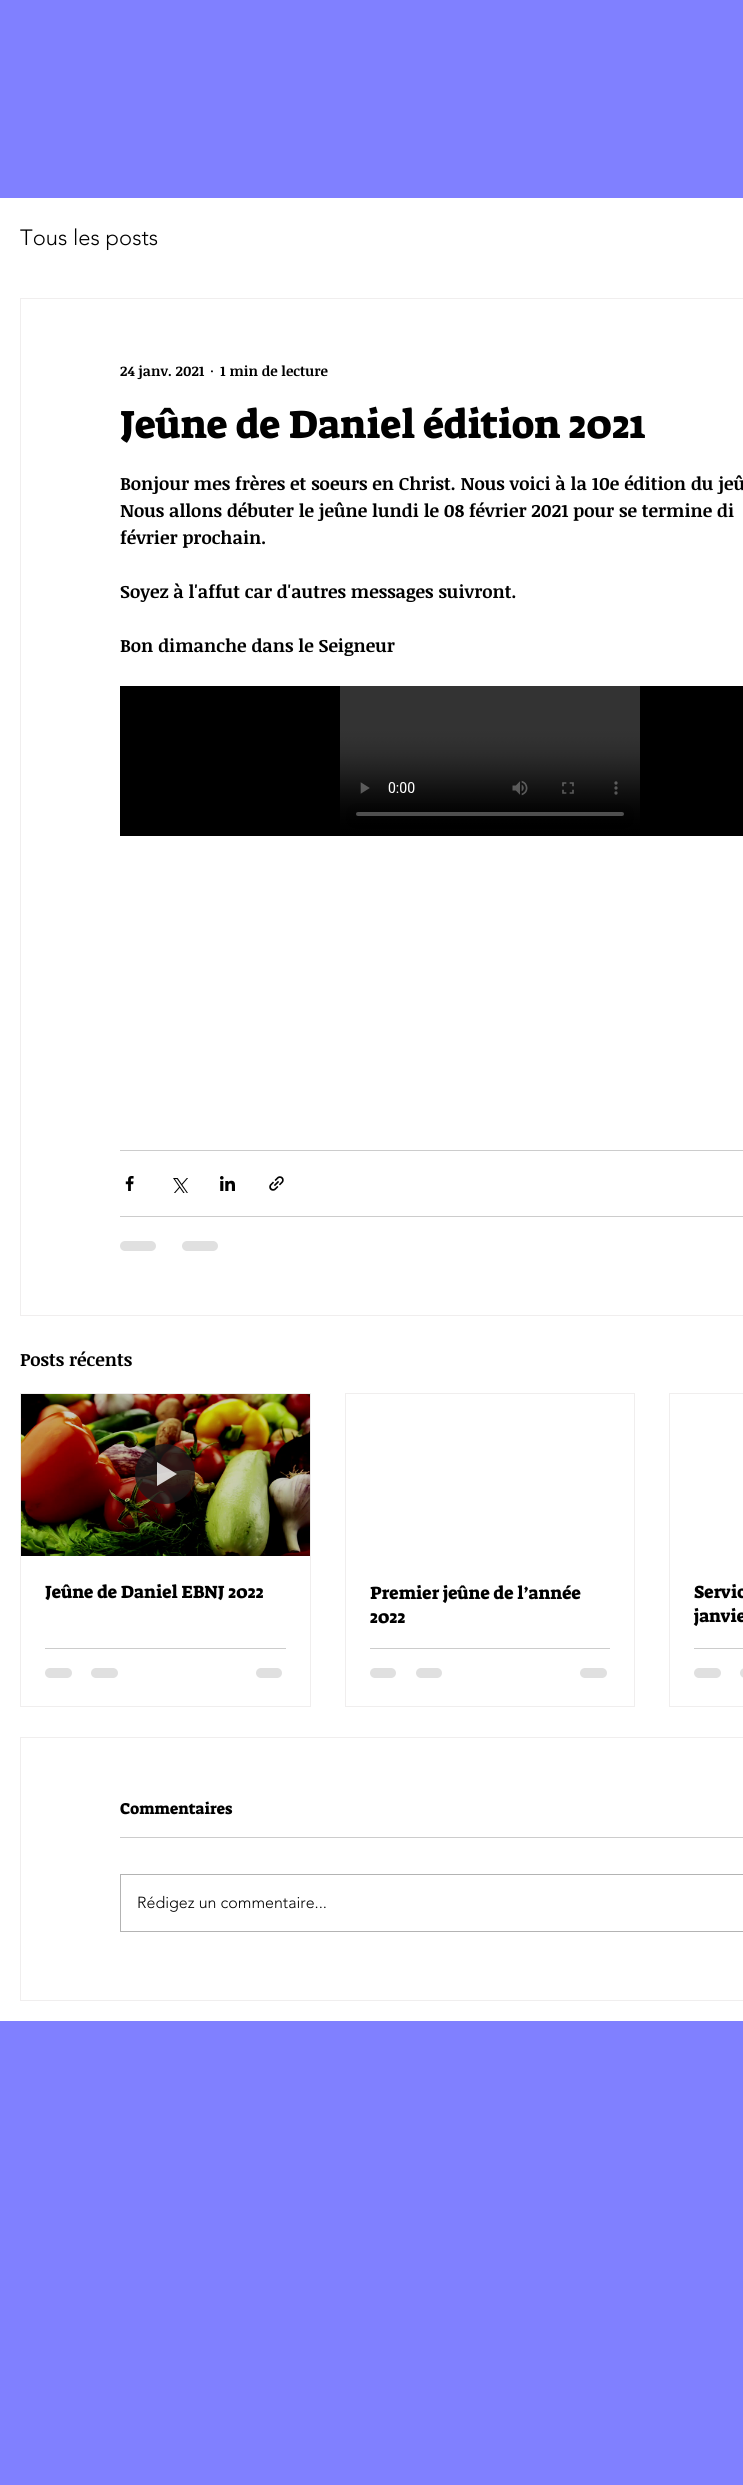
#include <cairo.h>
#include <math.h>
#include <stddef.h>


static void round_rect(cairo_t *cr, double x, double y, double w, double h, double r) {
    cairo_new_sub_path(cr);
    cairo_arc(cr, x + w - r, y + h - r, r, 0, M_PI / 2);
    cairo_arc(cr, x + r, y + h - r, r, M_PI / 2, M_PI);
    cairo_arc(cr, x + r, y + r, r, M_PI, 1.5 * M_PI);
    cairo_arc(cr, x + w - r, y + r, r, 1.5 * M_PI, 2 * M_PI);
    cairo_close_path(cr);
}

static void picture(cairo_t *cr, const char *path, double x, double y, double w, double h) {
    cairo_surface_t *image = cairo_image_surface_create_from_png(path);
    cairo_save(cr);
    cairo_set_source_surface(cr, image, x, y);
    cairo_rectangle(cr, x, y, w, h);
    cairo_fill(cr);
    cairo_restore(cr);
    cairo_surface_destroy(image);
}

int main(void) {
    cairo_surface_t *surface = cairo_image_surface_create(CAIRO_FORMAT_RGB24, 743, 2485);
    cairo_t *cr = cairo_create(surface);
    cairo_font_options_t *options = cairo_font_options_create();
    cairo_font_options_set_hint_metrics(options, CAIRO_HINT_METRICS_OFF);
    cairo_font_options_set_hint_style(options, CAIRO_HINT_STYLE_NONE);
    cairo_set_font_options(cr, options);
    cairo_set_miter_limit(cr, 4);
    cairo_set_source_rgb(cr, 0.502, 0.502, 1);
    cairo_paint(cr);
    cairo_set_source_rgb(cr, 1, 1, 1);
    cairo_rectangle(cr, 0, 198, 743, 1823);
    cairo_fill(cr);
    cairo_select_font_face(cr, "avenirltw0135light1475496 Light", CAIRO_FONT_SLANT_NORMAL, CAIRO_FONT_WEIGHT_NORMAL);
    cairo_set_font_size(cr, 22);
    cairo_set_source_rgb(cr, 0, 0, 0);
    cairo_move_to(cr, 20, 245);
    cairo_show_text(cr, "Tous les posts");
    cairo_rectangle(cr, 20.5, 298.5, 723, 1017);
    cairo_set_source_rgb(cr, 0.941, 0.933, 0.933);
    cairo_set_line_width(cr, 1);
    cairo_stroke(cr);
    cairo_select_font_face(cr, "Noticia Text", CAIRO_FONT_SLANT_NORMAL, CAIRO_FONT_WEIGHT_BOLD);
    cairo_set_font_size(cr, 14);
    cairo_set_source_rgb(cr, 0, 0, 0);
    cairo_move_to(cr, 120, 376);
    cairo_show_text(cr, "24 janv. 2021");
    cairo_move_to(cr, 210, 376);
    cairo_show_text(cr, "·");
    cairo_move_to(cr, 220, 376);
    cairo_show_text(cr, "1 min de lecture");
    cairo_select_font_face(cr, "Suez One", CAIRO_FONT_SLANT_NORMAL, CAIRO_FONT_WEIGHT_NORMAL);
    cairo_set_font_size(cr, 40);
    cairo_move_to(cr, 120, 438);
    cairo_show_text(cr, "Jeûne de Daniel édition 2021");
    cairo_select_font_face(cr, "Noticia Text", CAIRO_FONT_SLANT_NORMAL, CAIRO_FONT_WEIGHT_BOLD);
    cairo_set_font_size(cr, 18);
    cairo_move_to(cr, 120, 490);
    cairo_show_text(cr, "Bonjour mes frères et soeurs en Christ. Nous voici à la 10e édition du jeû");
    cairo_move_to(cr, 120, 517);
    cairo_show_text(cr, "Nous allons débuter le jeûne lundi le 08 février 2021 pour se termine di");
    cairo_move_to(cr, 120, 544);
    cairo_show_text(cr, "février prochain.");
    cairo_move_to(cr, 120, 598);
    cairo_show_text(cr, "Soyez à l'affut car d'autres messages suivront.");
    cairo_move_to(cr, 120, 652);
    cairo_show_text(cr, "Bon dimanche dans le Seigneur");
    picture(cr, "img1.png", 120, 686, 623, 150);
    cairo_set_source_rgb(cr, 0.8, 0.8, 0.8);
    cairo_rectangle(cr, 120, 1150, 623, 1);
    cairo_fill(cr);
    picture(cr, "img2.png", 125, 1176, 9, 15);
    picture(cr, "img3.png", 173, 1178, 15, 15);
    picture(cr, "img4.png", 220, 1176, 15, 15);
    picture(cr, "img5.png", 269, 1176, 15, 15);
    cairo_rectangle(cr, 120, 1216, 623, 1);
    cairo_fill(cr);
    cairo_set_source_rgb(cr, 0.878, 0.878, 0.878);
    round_rect(cr, 120, 1241, 36, 10, 5);
    cairo_fill(cr);
    round_rect(cr, 182, 1241, 36, 10, 5);
    cairo_fill(cr);
    cairo_set_source_rgb(cr, 0, 0, 0);
    cairo_move_to(cr, 20, 1366);
    cairo_show_text(cr, "Posts récents");
    cairo_rectangle(cr, 20.5, 1393.5, 290, 313);
    cairo_set_source_rgb(cr, 0.941, 0.933, 0.933);
    cairo_stroke(cr);
    picture(cr, "img6.png", 21, 1394, 289, 162);
    cairo_set_source_rgba(cr, 0.102, 0.102, 0.102, 0.8);
    cairo_arc(cr, 165, 1474, 30, 0, 2 * M_PI);
    cairo_fill(cr);
    cairo_set_source_rgba(cr, 1, 1, 1, 0.8);
    cairo_new_path(cr);
    cairo_move_to(cr, 157, 1462);
    cairo_line_to(cr, 157, 1486);
    cairo_line_to(cr, 177, 1474);
    cairo_close_path(cr);
    cairo_fill(cr);
    cairo_select_font_face(cr, "Suez One", CAIRO_FONT_SLANT_NORMAL, CAIRO_FONT_WEIGHT_NORMAL);
    cairo_set_source_rgb(cr, 0, 0, 0);
    cairo_move_to(cr, 45, 1598);
    cairo_show_text(cr, "Jeûne de Daniel EBNJ 2022");
    cairo_set_source_rgb(cr, 0.8, 0.8, 0.8);
    cairo_rectangle(cr, 45, 1648, 241, 1);
    cairo_fill(cr);
    cairo_set_source_rgb(cr, 0.878, 0.878, 0.878);
    round_rect(cr, 45, 1668, 27, 10, 5);
    cairo_fill(cr);
    round_rect(cr, 91, 1668, 27, 10, 5);
    cairo_fill(cr);
    round_rect(cr, 256, 1668, 26, 10, 5);
    cairo_fill(cr);
    cairo_rectangle(cr, 345.5, 1393.5, 289, 313);
    cairo_set_source_rgb(cr, 0.941, 0.933, 0.933);
    cairo_stroke(cr);
    cairo_set_source_rgb(cr, 0, 0, 0);
    cairo_move_to(cr, 370, 1599);
    cairo_show_text(cr, "Premier jeûne de l’année");
    cairo_move_to(cr, 370, 1623);
    cairo_show_text(cr, "2022");
    cairo_set_source_rgb(cr, 0.8, 0.8, 0.8);
    cairo_rectangle(cr, 370, 1648, 240, 1);
    cairo_fill(cr);
    cairo_set_source_rgb(cr, 0.878, 0.878, 0.878);
    round_rect(cr, 370, 1668, 26, 10, 5);
    cairo_fill(cr);
    round_rect(cr, 416, 1668, 26, 10, 5);
    cairo_fill(cr);
    round_rect(cr, 580, 1668, 27, 10, 5);
    cairo_fill(cr);
    cairo_rectangle(cr, 669.5, 1393.5, 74, 313);
    cairo_set_source_rgb(cr, 0.941, 0.933, 0.933);
    cairo_stroke(cr);
    cairo_set_source_rgb(cr, 0, 0, 0);
    cairo_move_to(cr, 694, 1598);
    cairo_show_text(cr, "Servic");
    cairo_move_to(cr, 694, 1622);
    cairo_show_text(cr, "janvie");
    cairo_set_source_rgb(cr, 0.8, 0.8, 0.8);
    cairo_rectangle(cr, 694, 1648, 49, 1);
    cairo_fill(cr);
    cairo_set_source_rgb(cr, 0.878, 0.878, 0.878);
    round_rect(cr, 694, 1668, 27, 10, 5);
    cairo_fill(cr);
    round_rect(cr, 740, 1668, 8, 10, 5);
    cairo_fill(cr);
    cairo_rectangle(cr, 20.5, 1737.5, 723, 263);
    cairo_set_source_rgb(cr, 0.941, 0.933, 0.933);
    cairo_stroke(cr);
    cairo_set_font_size(cr, 16);
    cairo_set_source_rgb(cr, 0, 0, 0);
    cairo_move_to(cr, 120, 1814);
    cairo_show_text(cr, "Commentaires");
    cairo_set_source_rgb(cr, 0.8, 0.8, 0.8);
    cairo_rectangle(cr, 120, 1837, 623, 1);
    cairo_fill(cr);
    cairo_rectangle(cr, 120.5, 1874.5, 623, 57);
    cairo_set_source_rgb(cr, 0.702, 0.702, 0.702);
    cairo_stroke(cr);
    cairo_select_font_face(cr, "avenirltw0135light1475496 Light", CAIRO_FONT_SLANT_NORMAL, CAIRO_FONT_WEIGHT_NORMAL);
    cairo_set_source_rgb(cr, 0, 0, 0);
    cairo_move_to(cr, 137, 1908);
    cairo_show_text(cr, "Rédigez un commentaire...");
    cairo_surface_write_to_png(surface, "page.png");
    cairo_font_options_destroy(options);
    cairo_destroy(cr);
    cairo_surface_destroy(surface);
    return 0;
}
